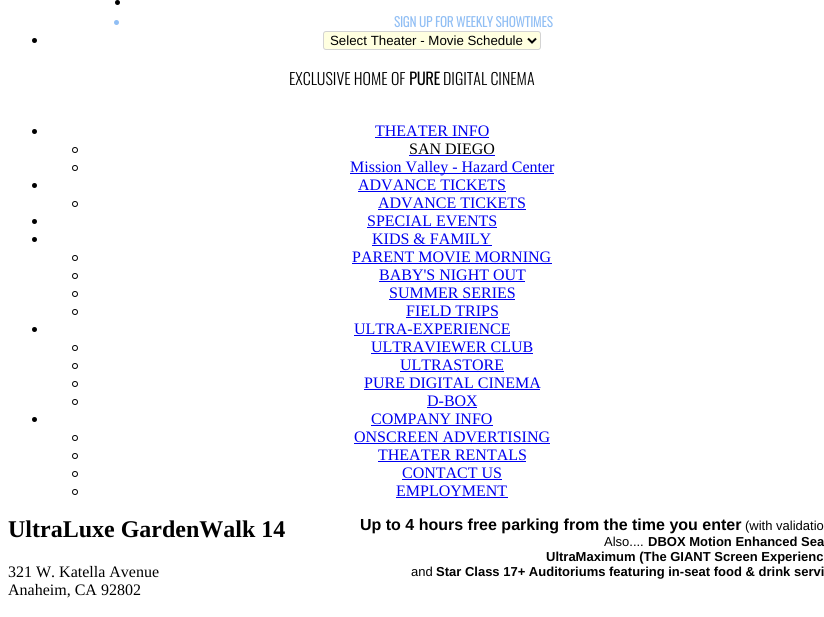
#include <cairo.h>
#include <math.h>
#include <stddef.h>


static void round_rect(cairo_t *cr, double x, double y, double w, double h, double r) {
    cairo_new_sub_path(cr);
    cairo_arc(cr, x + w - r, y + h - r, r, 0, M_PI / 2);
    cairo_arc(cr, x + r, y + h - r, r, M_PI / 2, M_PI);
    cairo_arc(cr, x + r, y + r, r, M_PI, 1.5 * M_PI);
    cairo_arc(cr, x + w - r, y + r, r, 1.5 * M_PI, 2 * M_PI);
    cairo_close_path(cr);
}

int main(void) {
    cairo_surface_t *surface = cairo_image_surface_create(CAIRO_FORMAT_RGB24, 824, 617);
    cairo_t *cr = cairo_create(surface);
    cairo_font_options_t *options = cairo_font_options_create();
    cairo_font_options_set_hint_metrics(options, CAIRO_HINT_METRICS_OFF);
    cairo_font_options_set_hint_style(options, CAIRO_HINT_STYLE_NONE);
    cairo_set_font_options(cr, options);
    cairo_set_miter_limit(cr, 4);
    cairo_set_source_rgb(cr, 1, 1, 1);
    cairo_paint(cr);
    cairo_set_source_rgb(cr, 0, 0, 0);
    cairo_arc(cr, 117.5, 2.5, 2.5, 0, 2 * M_PI);
    cairo_fill(cr);
    cairo_set_source_rgb(cr, 0.565, 0.745, 0.957);
    cairo_arc(cr, 116.5, 22.5, 2.5, 0, 2 * M_PI);
    cairo_fill(cr);
    cairo_select_font_face(cr, "Oswald", CAIRO_FONT_SLANT_NORMAL, CAIRO_FONT_WEIGHT_BOLD);
    cairo_set_font_size(cr, 13);
    cairo_move_to(cr, 394, 27);
    cairo_show_text(cr, "SIGN UP FOR WEEKLY SHOWTIMES");
    cairo_set_source_rgb(cr, 0, 0, 0);
    cairo_new_path(cr);
    cairo_arc(cr, 34.5, 40.5, 2.5, 0, 2 * M_PI);
    cairo_fill(cr);
    cairo_set_source_rgb(cr, 1, 1, 0.878);
    round_rect(cr, 323.5, 31.5, 217, 18, 2.5);
    cairo_fill_preserve(cr);
    cairo_set_source_rgb(cr, 0.827, 0.827, 0.827);
    cairo_set_line_width(cr, 1);
    cairo_stroke(cr);
    cairo_new_path(cr);
    cairo_move_to(cr, 528, 38.5);
    cairo_line_to(cr, 532, 42.5);
    cairo_line_to(cr, 536, 38.5);
    cairo_set_source_rgb(cr, 0, 0, 0);
    cairo_set_line_width(cr, 2);
    cairo_stroke(cr);
    cairo_select_font_face(cr, "Liberation Sans", CAIRO_FONT_SLANT_NORMAL, CAIRO_FONT_WEIGHT_NORMAL);
    cairo_set_font_size(cr, 13.3);
    cairo_move_to(cr, 330, 45);
    cairo_show_text(cr, "Select Theater - Movie Schedule");
    cairo_select_font_face(cr, "Oswald Light", CAIRO_FONT_SLANT_NORMAL, CAIRO_FONT_WEIGHT_NORMAL);
    cairo_set_font_size(cr, 16);
    cairo_move_to(cr, 289, 85);
    cairo_show_text(cr, "EXCLUSIVE HOME OF");
    cairo_select_font_face(cr, "Oswald", CAIRO_FONT_SLANT_NORMAL, CAIRO_FONT_WEIGHT_BOLD);
    cairo_move_to(cr, 409, 85);
    cairo_show_text(cr, "PURE");
    cairo_select_font_face(cr, "Oswald Light", CAIRO_FONT_SLANT_NORMAL, CAIRO_FONT_WEIGHT_NORMAL);
    cairo_move_to(cr, 443, 85);
    cairo_show_text(cr, "DIGITAL CINEMA");
    cairo_new_path(cr);
    cairo_arc(cr, 34.5, 131.5, 2.5, 0, 2 * M_PI);
    cairo_fill(cr);
    cairo_select_font_face(cr, "Liberation Serif", CAIRO_FONT_SLANT_NORMAL, CAIRO_FONT_WEIGHT_NORMAL);
    cairo_set_source_rgb(cr, 0, 0, 0.933);
    cairo_move_to(cr, 375, 136);
    cairo_show_text(cr, "THEATER INFO");
    cairo_rectangle(cr, 375, 137, 114, 1);
    cairo_fill(cr);
    cairo_arc(cr, 75, 150, 2.5, 0, 2 * M_PI);
    cairo_set_source_rgb(cr, 0, 0, 0);
    cairo_set_line_width(cr, 1);
    cairo_stroke(cr);
    cairo_move_to(cr, 409, 154);
    cairo_show_text(cr, "SAN DIEGO");
    cairo_set_source_rgb(cr, 0, 0, 0.933);
    cairo_rectangle(cr, 409, 155, 86, 1);
    cairo_fill(cr);
    cairo_arc(cr, 75, 168, 2.5, 0, 2 * M_PI);
    cairo_set_source_rgb(cr, 0, 0, 0);
    cairo_stroke(cr);
    cairo_set_source_rgb(cr, 0, 0, 0.933);
    cairo_rectangle(cr, 350, 173, 204, 1);
    cairo_fill(cr);
    cairo_move_to(cr, 350, 172);
    cairo_show_text(cr, "Mission Valley - Hazard Center");
    cairo_set_source_rgb(cr, 0, 0, 0);
    cairo_new_path(cr);
    cairo_arc(cr, 34.5, 185.5, 2.5, 0, 2 * M_PI);
    cairo_fill(cr);
    cairo_set_source_rgb(cr, 0, 0, 0.933);
    cairo_move_to(cr, 358, 190);
    cairo_show_text(cr, "ADVANCE TICKETS");
    cairo_rectangle(cr, 358, 191, 148, 1);
    cairo_fill(cr);
    cairo_arc(cr, 75, 204, 2.5, 0, 2 * M_PI);
    cairo_set_source_rgb(cr, 0, 0, 0);
    cairo_stroke(cr);
    cairo_set_source_rgb(cr, 0, 0, 0.933);
    cairo_move_to(cr, 378, 208);
    cairo_show_text(cr, "ADVANCE TICKETS");
    cairo_rectangle(cr, 378, 209, 148, 1);
    cairo_fill(cr);
    cairo_set_source_rgb(cr, 0, 0, 0);
    cairo_arc(cr, 34.5, 221.5, 2.5, 0, 2 * M_PI);
    cairo_fill(cr);
    cairo_set_source_rgb(cr, 0, 0, 0.933);
    cairo_move_to(cr, 367, 226);
    cairo_show_text(cr, "SPECIAL EVENTS");
    cairo_rectangle(cr, 367, 227, 130, 1);
    cairo_fill(cr);
    cairo_set_source_rgb(cr, 0, 0, 0);
    cairo_arc(cr, 34.5, 239.5, 2.5, 0, 2 * M_PI);
    cairo_fill(cr);
    cairo_set_source_rgb(cr, 0, 0, 0.933);
    cairo_move_to(cr, 372, 244);
    cairo_show_text(cr, "KIDS & FAMILY");
    cairo_rectangle(cr, 372, 245, 120, 1);
    cairo_fill(cr);
    cairo_arc(cr, 75, 258, 2.5, 0, 2 * M_PI);
    cairo_set_source_rgb(cr, 0, 0, 0);
    cairo_stroke(cr);
    cairo_set_source_rgb(cr, 0, 0, 0.933);
    cairo_move_to(cr, 352, 262);
    cairo_show_text(cr, "PARENT MOVIE MORNING");
    cairo_rectangle(cr, 352, 263, 200, 1);
    cairo_fill(cr);
    cairo_arc(cr, 75, 276, 2.5, 0, 2 * M_PI);
    cairo_set_source_rgb(cr, 0, 0, 0);
    cairo_stroke(cr);
    cairo_set_source_rgb(cr, 0, 0, 0.933);
    cairo_move_to(cr, 379, 280);
    cairo_show_text(cr, "BABY'S NIGHT OUT");
    cairo_rectangle(cr, 379, 281, 146, 1);
    cairo_fill(cr);
    cairo_arc(cr, 75, 294, 2.5, 0, 2 * M_PI);
    cairo_set_source_rgb(cr, 0, 0, 0);
    cairo_stroke(cr);
    cairo_set_source_rgb(cr, 0, 0, 0.933);
    cairo_move_to(cr, 389, 298);
    cairo_show_text(cr, "SUMMER SERIES");
    cairo_rectangle(cr, 389, 299, 126, 1);
    cairo_fill(cr);
    cairo_arc(cr, 75, 312, 2.5, 0, 2 * M_PI);
    cairo_set_source_rgb(cr, 0, 0, 0);
    cairo_stroke(cr);
    cairo_set_source_rgb(cr, 0, 0, 0.933);
    cairo_move_to(cr, 406, 316);
    cairo_show_text(cr, "FIELD TRIPS");
    cairo_rectangle(cr, 406, 317, 92, 1);
    cairo_fill(cr);
    cairo_set_source_rgb(cr, 0, 0, 0);
    cairo_arc(cr, 34.5, 329.5, 2.5, 0, 2 * M_PI);
    cairo_fill(cr);
    cairo_set_source_rgb(cr, 0, 0, 0.933);
    cairo_move_to(cr, 354, 334);
    cairo_show_text(cr, "ULTRA-EXPERIENCE");
    cairo_rectangle(cr, 354, 335, 156, 1);
    cairo_fill(cr);
    cairo_arc(cr, 75, 348, 2.5, 0, 2 * M_PI);
    cairo_set_source_rgb(cr, 0, 0, 0);
    cairo_stroke(cr);
    cairo_set_source_rgb(cr, 0, 0, 0.933);
    cairo_move_to(cr, 371, 352);
    cairo_show_text(cr, "ULTRAVIEWER CLUB");
    cairo_rectangle(cr, 371, 353, 162, 1);
    cairo_fill(cr);
    cairo_arc(cr, 75, 366, 2.5, 0, 2 * M_PI);
    cairo_set_source_rgb(cr, 0, 0, 0);
    cairo_stroke(cr);
    cairo_set_source_rgb(cr, 0, 0, 0.933);
    cairo_move_to(cr, 400, 370);
    cairo_show_text(cr, "ULTRASTORE");
    cairo_rectangle(cr, 400, 371, 104, 1);
    cairo_fill(cr);
    cairo_arc(cr, 75, 384, 2.5, 0, 2 * M_PI);
    cairo_set_source_rgb(cr, 0, 0, 0);
    cairo_stroke(cr);
    cairo_set_source_rgb(cr, 0, 0, 0.933);
    cairo_move_to(cr, 364, 388);
    cairo_show_text(cr, "PURE DIGITAL CINEMA");
    cairo_rectangle(cr, 364, 389, 176, 1);
    cairo_fill(cr);
    cairo_arc(cr, 75, 402, 2.5, 0, 2 * M_PI);
    cairo_set_source_rgb(cr, 0, 0, 0);
    cairo_stroke(cr);
    cairo_set_source_rgb(cr, 0, 0, 0.933);
    cairo_move_to(cr, 427, 406);
    cairo_show_text(cr, "D-BOX");
    cairo_rectangle(cr, 427, 407, 50, 1);
    cairo_fill(cr);
    cairo_set_source_rgb(cr, 0, 0, 0);
    cairo_arc(cr, 34.5, 419.5, 2.5, 0, 2 * M_PI);
    cairo_fill(cr);
    cairo_set_source_rgb(cr, 0, 0, 0.933);
    cairo_move_to(cr, 371, 424);
    cairo_show_text(cr, "COMPANY INFO");
    cairo_rectangle(cr, 371, 425, 122, 1);
    cairo_fill(cr);
    cairo_arc(cr, 75, 438, 2.5, 0, 2 * M_PI);
    cairo_set_source_rgb(cr, 0, 0, 0);
    cairo_stroke(cr);
    cairo_set_source_rgb(cr, 0, 0, 0.933);
    cairo_move_to(cr, 354, 442);
    cairo_show_text(cr, "ONSCREEN ADVERTISING");
    cairo_rectangle(cr, 354, 443, 196, 1);
    cairo_fill(cr);
    cairo_arc(cr, 75, 456, 2.5, 0, 2 * M_PI);
    cairo_set_source_rgb(cr, 0, 0, 0);
    cairo_stroke(cr);
    cairo_set_source_rgb(cr, 0, 0, 0.933);
    cairo_move_to(cr, 378, 460);
    cairo_show_text(cr, "THEATER RENTALS");
    cairo_rectangle(cr, 378, 461, 148, 1);
    cairo_fill(cr);
    cairo_arc(cr, 75, 474, 2.5, 0, 2 * M_PI);
    cairo_set_source_rgb(cr, 0, 0, 0);
    cairo_stroke(cr);
    cairo_set_source_rgb(cr, 0, 0, 0.933);
    cairo_move_to(cr, 402, 478);
    cairo_show_text(cr, "CONTACT US");
    cairo_rectangle(cr, 402, 479, 100, 1);
    cairo_fill(cr);
    cairo_arc(cr, 75, 492, 2.5, 0, 2 * M_PI);
    cairo_set_source_rgb(cr, 0, 0, 0);
    cairo_stroke(cr);
    cairo_set_source_rgb(cr, 0, 0, 0.933);
    cairo_move_to(cr, 396, 496);
    cairo_show_text(cr, "EMPLOYMENT");
    cairo_rectangle(cr, 396, 497, 112, 1);
    cairo_fill(cr);
    cairo_select_font_face(cr, "Liberation Serif", CAIRO_FONT_SLANT_NORMAL, CAIRO_FONT_WEIGHT_BOLD);
    cairo_set_font_size(cr, 24);
    cairo_set_source_rgb(cr, 0, 0, 0);
    cairo_move_to(cr, 8, 537);
    cairo_show_text(cr, "UltraLuxe GardenWalk 14");
    cairo_select_font_face(cr, "Liberation Serif", CAIRO_FONT_SLANT_NORMAL, CAIRO_FONT_WEIGHT_NORMAL);
    cairo_set_font_size(cr, 16);
    cairo_move_to(cr, 8, 577);
    cairo_show_text(cr, "321 W. Katella Avenue");
    cairo_move_to(cr, 8, 595);
    cairo_show_text(cr, "Anaheim, CA 92802");
    cairo_select_font_face(cr, "Liberation Sans", CAIRO_FONT_SLANT_NORMAL, CAIRO_FONT_WEIGHT_BOLD);
    cairo_move_to(cr, 360, 530);
    cairo_show_text(cr, "Up to 4 hours free parking from the time you enter");
    cairo_select_font_face(cr, "Liberation Sans", CAIRO_FONT_SLANT_NORMAL, CAIRO_FONT_WEIGHT_NORMAL);
    cairo_set_font_size(cr, 13);
    cairo_move_to(cr, 745, 530);
    cairo_show_text(cr, "(with validatio");
    cairo_move_to(cr, 604, 546);
    cairo_show_text(cr, "Also....");
    cairo_select_font_face(cr, "Liberation Sans", CAIRO_FONT_SLANT_NORMAL, CAIRO_FONT_WEIGHT_BOLD);
    cairo_move_to(cr, 648, 546);
    cairo_show_text(cr, "DBOX Motion Enhanced Sea");
    cairo_move_to(cr, 546, 561);
    cairo_show_text(cr, "UltraMaximum (The GIANT Screen Experienc");
    cairo_select_font_face(cr, "Liberation Sans", CAIRO_FONT_SLANT_NORMAL, CAIRO_FONT_WEIGHT_NORMAL);
    cairo_move_to(cr, 411, 576);
    cairo_show_text(cr, "and");
    cairo_select_font_face(cr, "Liberation Sans", CAIRO_FONT_SLANT_NORMAL, CAIRO_FONT_WEIGHT_BOLD);
    cairo_move_to(cr, 436, 576);
    cairo_show_text(cr, "Star Class 17+ Auditoriums featuring in-seat food & drink servi");
    cairo_surface_write_to_png(surface, "page.png");
    cairo_font_options_destroy(options);
    cairo_destroy(cr);
    cairo_surface_destroy(surface);
    return 0;
}
